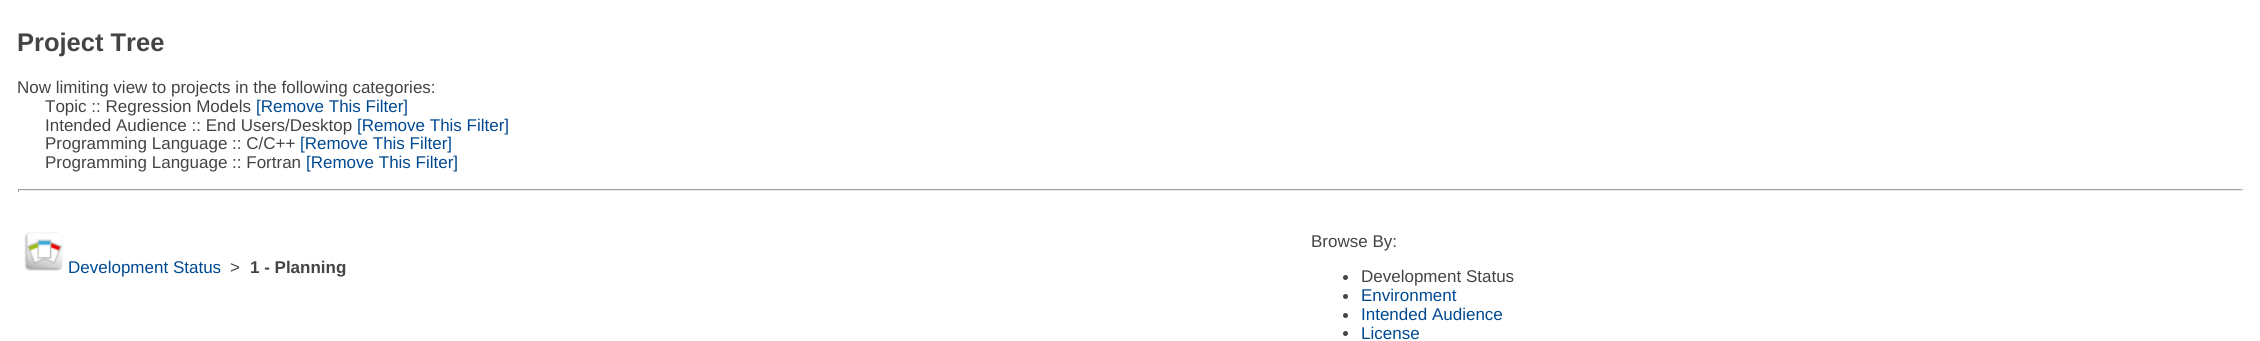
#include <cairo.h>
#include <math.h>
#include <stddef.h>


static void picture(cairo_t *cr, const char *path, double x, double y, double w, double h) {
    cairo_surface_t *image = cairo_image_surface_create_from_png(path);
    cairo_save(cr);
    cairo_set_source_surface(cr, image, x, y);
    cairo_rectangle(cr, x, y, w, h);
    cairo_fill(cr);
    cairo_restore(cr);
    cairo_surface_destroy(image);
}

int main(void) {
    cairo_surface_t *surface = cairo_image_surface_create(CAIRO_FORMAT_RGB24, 2260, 341);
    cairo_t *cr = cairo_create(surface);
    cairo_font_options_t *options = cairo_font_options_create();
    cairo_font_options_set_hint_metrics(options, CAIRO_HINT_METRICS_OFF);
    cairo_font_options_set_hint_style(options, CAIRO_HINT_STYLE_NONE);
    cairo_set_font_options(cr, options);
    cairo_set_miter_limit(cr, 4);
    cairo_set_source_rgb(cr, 1, 1, 1);
    cairo_paint(cr);
    cairo_select_font_face(cr, "Liberation Sans", CAIRO_FONT_SLANT_NORMAL, CAIRO_FONT_WEIGHT_BOLD);
    cairo_set_font_size(cr, 25.5);
    cairo_set_source_rgb(cr, 0.267, 0.267, 0.267);
    cairo_move_to(cr, 17, 51);
    cairo_show_text(cr, "Project Tree");
    cairo_select_font_face(cr, "Liberation Sans", CAIRO_FONT_SLANT_NORMAL, CAIRO_FONT_WEIGHT_NORMAL);
    cairo_set_font_size(cr, 17);
    cairo_move_to(cr, 17, 93);
    cairo_show_text(cr, "Now limiting view to projects in the following categories:");
    cairo_move_to(cr, 45, 112);
    cairo_show_text(cr, "Topic :: Regression Models");
    cairo_set_source_rgb(cr, 0.004, 0.286, 0.565);
    cairo_move_to(cr, 256, 112);
    cairo_show_text(cr, "[Remove This Filter]");
    cairo_set_source_rgb(cr, 0.267, 0.267, 0.267);
    cairo_move_to(cr, 45, 131);
    cairo_show_text(cr, "Intended Audience :: End Users/Desktop");
    cairo_set_source_rgb(cr, 0.004, 0.286, 0.565);
    cairo_move_to(cr, 357, 131);
    cairo_show_text(cr, "[Remove This Filter]");
    cairo_set_source_rgb(cr, 0.267, 0.267, 0.267);
    cairo_move_to(cr, 45, 149);
    cairo_show_text(cr, "Programming Language :: C/C++");
    cairo_set_source_rgb(cr, 0.004, 0.286, 0.565);
    cairo_move_to(cr, 300, 149);
    cairo_show_text(cr, "[Remove This Filter]");
    cairo_set_source_rgb(cr, 0.267, 0.267, 0.267);
    cairo_move_to(cr, 45, 168);
    cairo_show_text(cr, "Programming Language :: Fortran");
    cairo_set_source_rgb(cr, 0.004, 0.286, 0.565);
    cairo_move_to(cr, 306, 168);
    cairo_show_text(cr, "[Remove This Filter]");
    cairo_set_source_rgb(cr, 0.624, 0.624, 0.624);
    cairo_rectangle(cr, 18, 189, 2225, 1);
    cairo_fill(cr);
    cairo_set_source_rgb(cr, 0.933, 0.933, 0.933);
    cairo_rectangle(cr, 2241, 189, 1, 3);
    cairo_fill(cr);
    cairo_rectangle(cr, 18, 190, 2225, 1);
    cairo_fill(cr);
    cairo_set_source_rgb(cr, 0.624, 0.624, 0.624);
    cairo_rectangle(cr, 18, 189, 1, 3);
    cairo_fill(cr);
    picture(cr, "img1.png", 24, 232, 39, 39);
    cairo_set_source_rgb(cr, 0.004, 0.286, 0.565);
    cairo_move_to(cr, 68, 273);
    cairo_show_text(cr, "Development Status");
    cairo_set_source_rgb(cr, 0.267, 0.267, 0.267);
    cairo_move_to(cr, 230, 273);
    cairo_show_text(cr, ">");
    cairo_select_font_face(cr, "Liberation Sans", CAIRO_FONT_SLANT_NORMAL, CAIRO_FONT_WEIGHT_BOLD);
    cairo_move_to(cr, 250, 273);
    cairo_show_text(cr, "1 - Planning");
    cairo_select_font_face(cr, "Liberation Sans", CAIRO_FONT_SLANT_NORMAL, CAIRO_FONT_WEIGHT_NORMAL);
    cairo_move_to(cr, 1311, 247);
    cairo_show_text(cr, "Browse By:");
    cairo_new_path(cr);
    cairo_arc(cr, 1345.5, 277.5, 2.5, 0, 2 * M_PI);
    cairo_fill(cr);
    cairo_move_to(cr, 1361, 282);
    cairo_show_text(cr, "Development Status");
    cairo_new_path(cr);
    cairo_arc(cr, 1345.5, 296.5, 2.5, 0, 2 * M_PI);
    cairo_fill(cr);
    cairo_set_source_rgb(cr, 0.004, 0.286, 0.565);
    cairo_move_to(cr, 1361, 301);
    cairo_show_text(cr, "Environment");
    cairo_set_source_rgb(cr, 0.267, 0.267, 0.267);
    cairo_new_path(cr);
    cairo_arc(cr, 1345.5, 315.5, 2.5, 0, 2 * M_PI);
    cairo_fill(cr);
    cairo_set_source_rgb(cr, 0.004, 0.286, 0.565);
    cairo_move_to(cr, 1361, 320);
    cairo_show_text(cr, "Intended Audience");
    cairo_set_source_rgb(cr, 0.267, 0.267, 0.267);
    cairo_new_path(cr);
    cairo_arc(cr, 1345.5, 333.5, 2.5, 0, 2 * M_PI);
    cairo_fill(cr);
    cairo_set_source_rgb(cr, 0.004, 0.286, 0.565);
    cairo_move_to(cr, 1361, 339);
    cairo_show_text(cr, "License");
    cairo_surface_write_to_png(surface, "page.png");
    cairo_font_options_destroy(options);
    cairo_destroy(cr);
    cairo_surface_destroy(surface);
    return 0;
}
